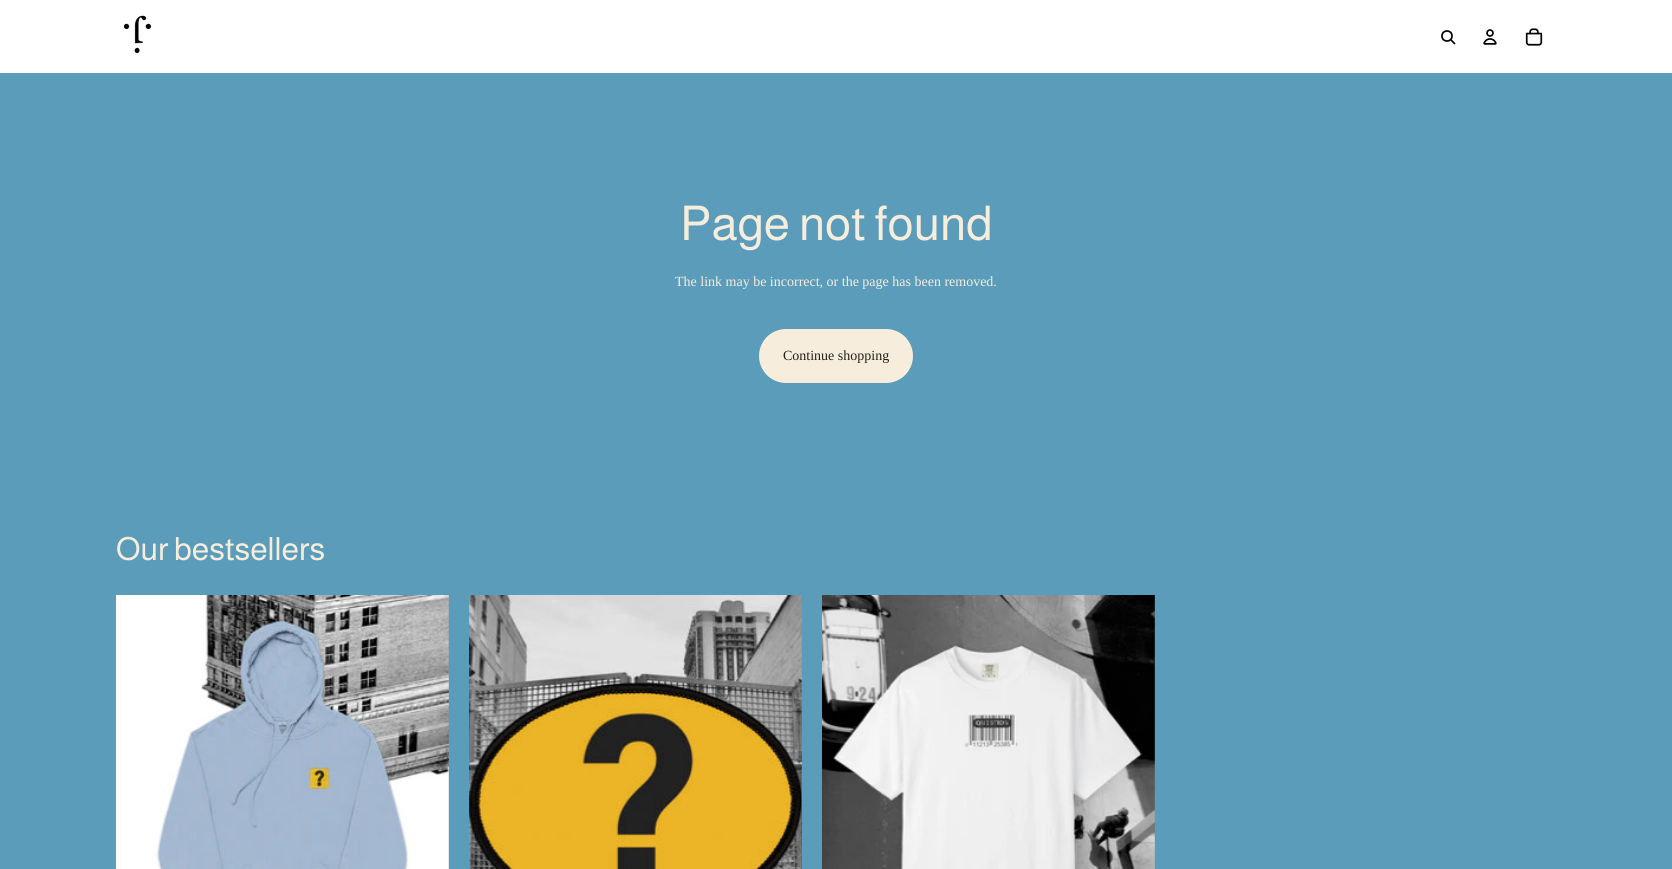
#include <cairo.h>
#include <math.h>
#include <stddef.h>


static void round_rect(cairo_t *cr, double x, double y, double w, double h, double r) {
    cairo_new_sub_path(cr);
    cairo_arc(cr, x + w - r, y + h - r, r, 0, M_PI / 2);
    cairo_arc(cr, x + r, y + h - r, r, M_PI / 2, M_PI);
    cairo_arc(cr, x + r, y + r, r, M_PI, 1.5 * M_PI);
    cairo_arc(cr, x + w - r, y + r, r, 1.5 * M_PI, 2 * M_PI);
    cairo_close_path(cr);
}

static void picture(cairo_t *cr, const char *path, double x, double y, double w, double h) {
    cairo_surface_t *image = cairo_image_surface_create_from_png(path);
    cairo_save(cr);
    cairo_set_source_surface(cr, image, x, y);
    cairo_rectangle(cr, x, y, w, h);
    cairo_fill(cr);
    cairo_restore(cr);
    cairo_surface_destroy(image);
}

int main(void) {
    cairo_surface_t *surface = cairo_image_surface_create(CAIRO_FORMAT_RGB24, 1672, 869);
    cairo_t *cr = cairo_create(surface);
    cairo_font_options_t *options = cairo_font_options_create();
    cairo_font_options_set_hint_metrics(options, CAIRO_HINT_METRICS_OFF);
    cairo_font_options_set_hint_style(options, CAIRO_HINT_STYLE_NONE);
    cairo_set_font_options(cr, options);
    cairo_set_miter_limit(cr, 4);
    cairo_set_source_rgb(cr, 0.353, 0.612, 0.729);
    cairo_paint(cr);
    cairo_set_source_rgb(cr, 1, 1, 1);
    cairo_rectangle(cr, 0, 0, 1672, 73);
    cairo_fill(cr);
    picture(cr, "img1.png", 123, 15, 29, 39);
    cairo_arc(cr, 1447, 36, 5, 0, 2 * M_PI);
    cairo_set_source_rgb(cr, 0, 0, 0);
    cairo_set_line_width(cr, 1.7);
    cairo_stroke(cr);
    cairo_new_path(cr);
    cairo_move_to(cr, 1451, 40);
    cairo_line_to(cr, 1454.5, 43.5);
    cairo_set_line_cap(cr, CAIRO_LINE_CAP_ROUND);
    cairo_set_line_join(cr, CAIRO_LINE_JOIN_ROUND);
    cairo_stroke(cr);
    picture(cr, "img2.png", 1483, 29, 14, 16);
    picture(cr, "img3.png", 1525, 28, 18, 18);
    cairo_select_font_face(cr, "Almarai", CAIRO_FONT_SLANT_NORMAL, CAIRO_FONT_WEIGHT_NORMAL);
    cairo_set_font_size(cr, 48);
    cairo_set_source_rgb(cr, 0.965, 0.929, 0.867);
    cairo_move_to(cr, 680, 240);
    cairo_show_text(cr, "Page not found");
    cairo_select_font_face(cr, "Liberation Serif", CAIRO_FONT_SLANT_NORMAL, CAIRO_FONT_WEIGHT_NORMAL);
    cairo_set_font_size(cr, 14);
    cairo_move_to(cr, 675, 286);
    cairo_show_text(cr, "The link may be incorrect, or the page has been removed.");
    round_rect(cr, 759, 329, 154, 54, 27);
    cairo_fill(cr);
    cairo_set_source_rgb(cr, 0.125, 0.133, 0.098);
    cairo_move_to(cr, 783, 360);
    cairo_show_text(cr, "Continue shopping");
    cairo_select_font_face(cr, "Almarai", CAIRO_FONT_SLANT_NORMAL, CAIRO_FONT_WEIGHT_NORMAL);
    cairo_set_font_size(cr, 32);
    cairo_set_source_rgb(cr, 0.965, 0.929, 0.867);
    cairo_move_to(cr, 116, 560);
    cairo_show_text(cr, "Our bestsellers");
    picture(cr, "img4.png", 116, 595, 333, 274);
    picture(cr, "img5.png", 469, 595, 333, 274);
    picture(cr, "img6.png", 822, 595, 333, 274);
    cairo_surface_write_to_png(surface, "page.png");
    cairo_font_options_destroy(options);
    cairo_destroy(cr);
    cairo_surface_destroy(surface);
    return 0;
}
